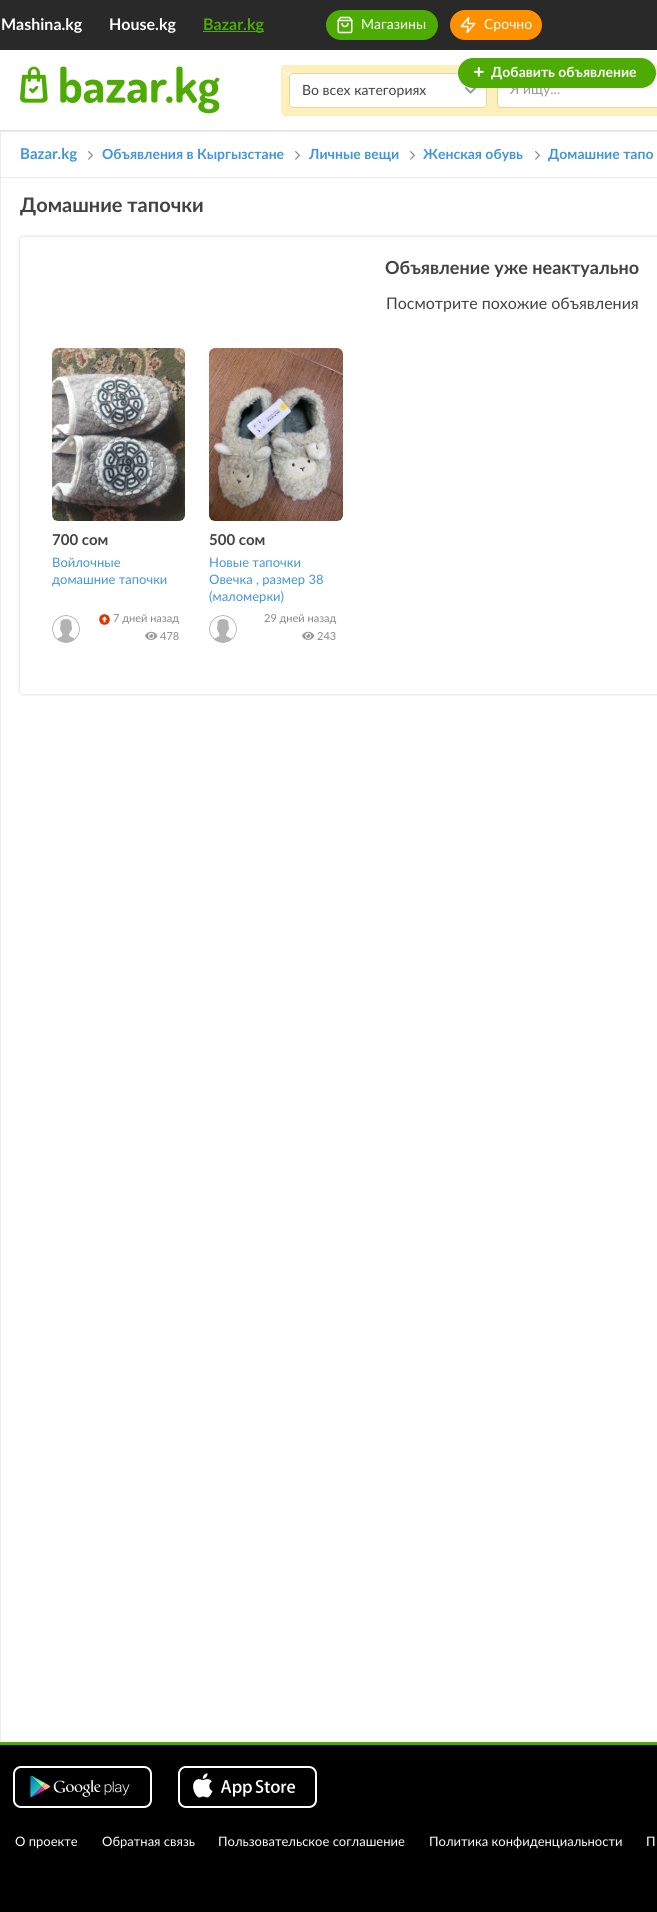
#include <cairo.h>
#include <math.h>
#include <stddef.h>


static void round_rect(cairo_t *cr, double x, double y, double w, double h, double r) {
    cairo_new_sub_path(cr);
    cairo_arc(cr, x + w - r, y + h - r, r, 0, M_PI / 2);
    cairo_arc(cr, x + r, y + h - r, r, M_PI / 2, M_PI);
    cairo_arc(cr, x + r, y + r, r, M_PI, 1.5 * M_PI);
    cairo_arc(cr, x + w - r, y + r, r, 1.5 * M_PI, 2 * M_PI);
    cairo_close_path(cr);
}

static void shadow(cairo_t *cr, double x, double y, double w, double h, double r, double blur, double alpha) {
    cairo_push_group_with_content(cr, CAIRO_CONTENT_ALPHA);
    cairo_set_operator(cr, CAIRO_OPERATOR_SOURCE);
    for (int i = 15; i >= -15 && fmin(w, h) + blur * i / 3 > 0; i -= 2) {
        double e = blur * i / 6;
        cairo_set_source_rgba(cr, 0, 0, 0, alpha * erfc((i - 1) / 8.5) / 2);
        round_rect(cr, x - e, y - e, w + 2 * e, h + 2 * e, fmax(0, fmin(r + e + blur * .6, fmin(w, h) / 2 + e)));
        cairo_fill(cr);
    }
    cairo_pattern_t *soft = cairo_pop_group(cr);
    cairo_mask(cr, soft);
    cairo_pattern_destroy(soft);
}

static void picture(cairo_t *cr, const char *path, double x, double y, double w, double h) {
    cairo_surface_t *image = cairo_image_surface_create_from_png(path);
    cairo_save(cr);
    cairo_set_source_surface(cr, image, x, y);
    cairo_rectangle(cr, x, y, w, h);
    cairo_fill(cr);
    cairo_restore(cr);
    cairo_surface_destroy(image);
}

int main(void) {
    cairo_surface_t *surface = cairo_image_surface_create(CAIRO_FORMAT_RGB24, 657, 1912);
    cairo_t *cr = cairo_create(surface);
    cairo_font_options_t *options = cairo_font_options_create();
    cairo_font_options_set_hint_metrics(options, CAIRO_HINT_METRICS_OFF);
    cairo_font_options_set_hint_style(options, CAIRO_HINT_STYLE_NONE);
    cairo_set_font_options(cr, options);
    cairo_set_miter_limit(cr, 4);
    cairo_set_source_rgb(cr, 1, 1, 1);
    cairo_paint(cr);
    cairo_set_source_rgb(cr, 0.161, 0.161, 0.161);
    cairo_rectangle(cr, 0, 0, 657, 50);
    cairo_fill(cr);
    cairo_select_font_face(cr, "Lato", CAIRO_FONT_SLANT_NORMAL, CAIRO_FONT_WEIGHT_BOLD);
    cairo_set_font_size(cr, 16);
    cairo_set_source_rgb(cr, 1, 1, 1);
    cairo_move_to(cr, 1, 30);
    cairo_show_text(cr, "Mashina.kg");
    cairo_move_to(cr, 109, 30);
    cairo_show_text(cr, "House.kg");
    cairo_set_source_rgb(cr, 0.302, 0.671, 0.016);
    cairo_rectangle(cr, 203, 31, 61, 1);
    cairo_fill(cr);
    cairo_move_to(cr, 203, 30);
    cairo_show_text(cr, "Bazar.kg");
    round_rect(cr, 326, 10, 112, 30, 15);
    cairo_fill(cr);
    picture(cr, "img1.png", 337, 16, 16, 18);
    cairo_select_font_face(cr, "Lato", CAIRO_FONT_SLANT_NORMAL, CAIRO_FONT_WEIGHT_NORMAL);
    cairo_set_font_size(cr, 14);
    cairo_set_source_rgb(cr, 1, 1, 1);
    cairo_move_to(cr, 361, 29);
    cairo_show_text(cr, "Магазины");
    cairo_set_source_rgb(cr, 1, 0.565, 0);
    round_rect(cr, 450, 10, 92, 30, 15);
    cairo_fill(cr);
    picture(cr, "img2.png", 460, 16, 16, 18);
    cairo_set_source_rgb(cr, 1, 1, 1);
    cairo_move_to(cr, 484, 29);
    cairo_show_text(cr, "Срочно");
    cairo_set_source_rgb(cr, 1, 0.941, 0.733);
    round_rect(cr, 281, 65, 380, 51, 4);
    cairo_fill(cr);
    cairo_set_source_rgb(cr, 1, 1, 1);
    round_rect(cr, 289, 73, 198, 35, 4);
    cairo_fill(cr);
    picture(cr, "img6.png", 465, 87, 12, 7);
    round_rect(cr, 289.5, 73.5, 197, 34, 3.5);
    cairo_set_source_rgb(cr, 0.906, 0.839, 0.612);
    cairo_set_line_width(cr, 1);
    cairo_stroke(cr);
    picture(cr, "img3.png", 283, 70, 9, 6);
    cairo_set_source_rgb(cr, 1, 1, 1);
    round_rect(cr, 497.5, 73.5, 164, 34, 3.5);
    cairo_fill_preserve(cr);
    cairo_set_source_rgb(cr, 0.906, 0.839, 0.612);
    cairo_stroke(cr);
    cairo_set_source_rgb(cr, 0.6, 0.6, 0.6);
    cairo_move_to(cr, 510, 94);
    cairo_show_text(cr, "Я ищу...");
    cairo_set_source_rgb(cr, 0.302, 0.671, 0.016);
    round_rect(cr, 458, 58, 198, 30, 15);
    cairo_fill(cr);
    picture(cr, "img4.png", 474, 67, 10, 10);
    cairo_select_font_face(cr, "Lato", CAIRO_FONT_SLANT_NORMAL, CAIRO_FONT_WEIGHT_BOLD);
    cairo_set_source_rgb(cr, 1, 1, 1);
    cairo_move_to(cr, 491, 77);
    cairo_show_text(cr, "Добавить объявление");
    cairo_set_source_rgb(cr, 0.882, 0.882, 0.882);
    cairo_rectangle(cr, 0, 130, 657, 1);
    cairo_fill(cr);
    picture(cr, "img5.png", 20, 66, 200, 48);
    cairo_select_font_face(cr, "Lato", CAIRO_FONT_SLANT_NORMAL, CAIRO_FONT_WEIGHT_NORMAL);
    cairo_set_source_rgb(cr, 0.259, 0.259, 0.259);
    cairo_move_to(cr, 302, 95);
    cairo_show_text(cr, "Во всех категориях");
    cairo_set_source_rgb(cr, 0.922, 0.922, 0.922);
    cairo_rectangle(cr, 0, 131, 1, 1611);
    cairo_fill(cr);
    cairo_set_source_rgb(cr, 0.925, 0.925, 0.925);
    cairo_rectangle(cr, 0, 131, 657, 1);
    cairo_fill(cr);
    cairo_rectangle(cr, 0, 177, 657, 1);
    cairo_fill(cr);
    cairo_select_font_face(cr, "Lato", CAIRO_FONT_SLANT_NORMAL, CAIRO_FONT_WEIGHT_BOLD);
    cairo_set_font_size(cr, 15);
    cairo_set_source_rgb(cr, 0.259, 0.584, 0.851);
    cairo_move_to(cr, 20, 159);
    cairo_show_text(cr, "Bazar.kg");
    picture(cr, "img7.png", 88, 151, 5, 9);
    cairo_set_font_size(cr, 14);
    cairo_move_to(cr, 102, 159);
    cairo_show_text(cr, "Объявления в Кыргызстане");
    picture(cr, "img7.png", 295, 151, 5, 9);
    cairo_move_to(cr, 309, 159);
    cairo_show_text(cr, "Личные вещи");
    picture(cr, "img7.png", 410, 151, 5, 9);
    cairo_move_to(cr, 423, 159);
    cairo_show_text(cr, "Женская обувь");
    picture(cr, "img7.png", 535, 151, 5, 9);
    cairo_move_to(cr, 548, 159);
    cairo_show_text(cr, "Домашние тапо");
    cairo_set_font_size(cr, 20);
    cairo_set_source_rgb(cr, 0.259, 0.259, 0.259);
    cairo_move_to(cr, 20, 212);
    cairo_show_text(cr, "Домашние тапочки");
    cairo_save(cr);
    cairo_set_fill_rule(cr, CAIRO_FILL_RULE_EVEN_ODD);
    cairo_new_path(cr);
    cairo_move_to(cr, 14, 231);
    cairo_line_to(cr, 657, 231);
    cairo_line_to(cr, 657, 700);
    cairo_line_to(cr, 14, 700);
    cairo_close_path(cr);
    cairo_move_to(cr, 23, 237);
    cairo_line_to(cr, 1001, 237);
    cairo_curve_to(cr, 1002.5, 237, 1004, 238.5, 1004, 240);
    cairo_line_to(cr, 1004, 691);
    cairo_curve_to(cr, 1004, 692.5, 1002.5, 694, 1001, 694);
    cairo_line_to(cr, 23, 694);
    cairo_curve_to(cr, 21.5, 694, 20, 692.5, 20, 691);
    cairo_line_to(cr, 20, 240);
    cairo_curve_to(cr, 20, 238.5, 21.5, 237, 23, 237);
    cairo_close_path(cr);
    cairo_clip(cr);
    cairo_set_source_rgb(cr, 0.8, 0.8, 0.8);
    shadow(cr, 20, 237, 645, 457, 3, 1.5, 1);
    cairo_restore(cr);
    cairo_set_font_size(cr, 18);
    cairo_move_to(cr, 385, 274);
    cairo_show_text(cr, "Объявление уже неактуально");
    cairo_select_font_face(cr, "Lato", CAIRO_FONT_SLANT_NORMAL, CAIRO_FONT_WEIGHT_NORMAL);
    cairo_set_font_size(cr, 16);
    cairo_move_to(cr, 386, 309);
    cairo_show_text(cr, "Посмотрите похожие объявления");
    picture(cr, "img8.png", 52, 348, 133, 173);
    cairo_select_font_face(cr, "Lato", CAIRO_FONT_SLANT_NORMAL, CAIRO_FONT_WEIGHT_BOLD);
    cairo_set_font_size(cr, 15);
    cairo_move_to(cr, 52, 545);
    cairo_show_text(cr, "700 сом");
    cairo_select_font_face(cr, "Lato", CAIRO_FONT_SLANT_NORMAL, CAIRO_FONT_WEIGHT_NORMAL);
    cairo_set_font_size(cr, 13);
    cairo_set_source_rgb(cr, 0.259, 0.584, 0.851);
    cairo_move_to(cr, 52, 567);
    cairo_show_text(cr, "Войлочные");
    cairo_move_to(cr, 52, 584);
    cairo_show_text(cr, "домашние тапочки");
    picture(cr, "img9.png", 52, 615, 28, 28);
    picture(cr, "img10.png", 99, 614, 11, 11);
    cairo_set_font_size(cr, 11);
    cairo_set_source_rgb(cr, 0.533, 0.533, 0.533);
    cairo_move_to(cr, 113, 622);
    cairo_show_text(cr, "7 дней назад");
    picture(cr, "img11.png", 145, 631, 13, 9);
    cairo_move_to(cr, 160, 640);
    cairo_show_text(cr, "478");
    picture(cr, "img12.png", 209, 348, 134, 173);
    cairo_select_font_face(cr, "Lato", CAIRO_FONT_SLANT_NORMAL, CAIRO_FONT_WEIGHT_BOLD);
    cairo_set_font_size(cr, 15);
    cairo_set_source_rgb(cr, 0.259, 0.259, 0.259);
    cairo_move_to(cr, 209, 545);
    cairo_show_text(cr, "500 сом");
    cairo_select_font_face(cr, "Lato", CAIRO_FONT_SLANT_NORMAL, CAIRO_FONT_WEIGHT_NORMAL);
    cairo_set_font_size(cr, 13);
    cairo_set_source_rgb(cr, 0.259, 0.584, 0.851);
    cairo_move_to(cr, 209, 567);
    cairo_show_text(cr, "Новые тапочки");
    cairo_move_to(cr, 209, 584);
    cairo_show_text(cr, "Овечка , размер 38");
    cairo_move_to(cr, 209, 601);
    cairo_show_text(cr, "(маломерки)");
    picture(cr, "img9.png", 209, 615, 28, 28);
    cairo_set_font_size(cr, 11);
    cairo_set_source_rgb(cr, 0.533, 0.533, 0.533);
    cairo_move_to(cr, 264, 622);
    cairo_show_text(cr, "29 дней назад");
    picture(cr, "img11.png", 302, 631, 13, 9);
    cairo_move_to(cr, 317, 640);
    cairo_show_text(cr, "243");
    cairo_set_source_rgb(cr, 0, 0, 0);
    cairo_rectangle(cr, 0, 1745, 657, 167);
    cairo_fill(cr);
    cairo_set_source_rgb(cr, 0.302, 0.671, 0.016);
    cairo_rectangle(cr, 0, 1742, 657, 3);
    cairo_fill(cr);
    round_rect(cr, 14, 1767, 137, 40, 7);
    cairo_set_source_rgb(cr, 1, 1, 1);
    cairo_set_line_width(cr, 2);
    cairo_stroke(cr);
    picture(cr, "img13.png", 30, 1775, 100, 23);
    round_rect(cr, 179, 1767, 137, 40, 7);
    cairo_stroke(cr);
    picture(cr, "img14.png", 181, 1768, 129, 38);
    cairo_set_font_size(cr, 13);
    cairo_move_to(cr, 15, 1846);
    cairo_show_text(cr, "О проекте");
    cairo_move_to(cr, 102, 1846);
    cairo_show_text(cr, "Обратная связь");
    cairo_move_to(cr, 218, 1846);
    cairo_show_text(cr, "Пользовательское соглашение");
    cairo_move_to(cr, 429, 1846);
    cairo_show_text(cr, "Политика конфиденциальности");
    cairo_move_to(cr, 646, 1846);
    cairo_show_text(cr, "П");
    cairo_surface_write_to_png(surface, "page.png");
    cairo_font_options_destroy(options);
    cairo_destroy(cr);
    cairo_surface_destroy(surface);
    return 0;
}
